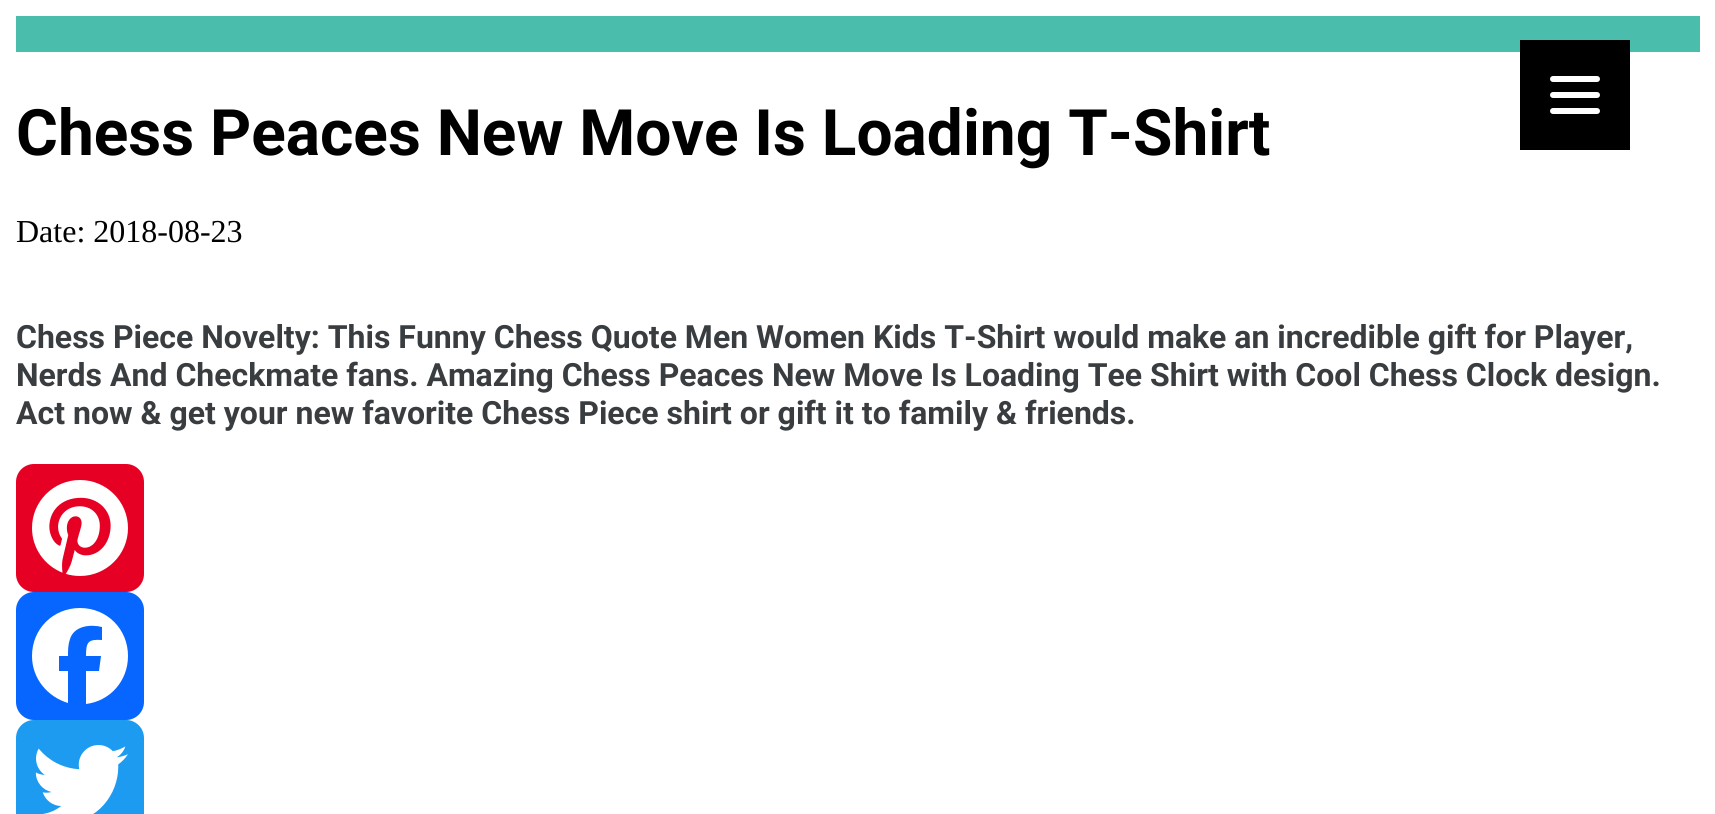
#include <cairo.h>
#include <math.h>
#include <stddef.h>


static void round_rect(cairo_t *cr, double x, double y, double w, double h, double r) {
    cairo_new_sub_path(cr);
    cairo_arc(cr, x + w - r, y + h - r, r, 0, M_PI / 2);
    cairo_arc(cr, x + r, y + h - r, r, M_PI / 2, M_PI);
    cairo_arc(cr, x + r, y + r, r, M_PI, 1.5 * M_PI);
    cairo_arc(cr, x + w - r, y + r, r, 1.5 * M_PI, 2 * M_PI);
    cairo_close_path(cr);
}

static void picture(cairo_t *cr, const char *path, double x, double y, double w, double h) {
    cairo_surface_t *image = cairo_image_surface_create_from_png(path);
    cairo_save(cr);
    cairo_set_source_surface(cr, image, x, y);
    cairo_rectangle(cr, x, y, w, h);
    cairo_fill(cr);
    cairo_restore(cr);
    cairo_surface_destroy(image);
}

int main(void) {
    cairo_surface_t *surface = cairo_image_surface_create(CAIRO_FORMAT_RGB24, 1715, 814);
    cairo_t *cr = cairo_create(surface);
    cairo_font_options_t *options = cairo_font_options_create();
    cairo_font_options_set_hint_metrics(options, CAIRO_HINT_METRICS_OFF);
    cairo_font_options_set_hint_style(options, CAIRO_HINT_STYLE_NONE);
    cairo_set_font_options(cr, options);
    cairo_set_miter_limit(cr, 4);
    cairo_set_source_rgb(cr, 1, 1, 1);
    cairo_paint(cr);
    cairo_set_source_rgb(cr, 0.29, 0.741, 0.675);
    cairo_rectangle(cr, 16, 16, 1684, 36);
    cairo_fill(cr);
    cairo_set_source_rgb(cr, 0, 0, 0);
    cairo_rectangle(cr, 1520, 40, 110, 110);
    cairo_fill(cr);
    cairo_set_source_rgb(cr, 1, 1, 1);
    round_rect(cr, 1550, 92, 50, 6, 3);
    cairo_fill(cr);
    round_rect(cr, 1550, 76, 50, 6, 3);
    cairo_fill(cr);
    round_rect(cr, 1550, 108, 50, 6, 3);
    cairo_fill(cr);
    cairo_select_font_face(cr, "Roboto", CAIRO_FONT_SLANT_NORMAL, CAIRO_FONT_WEIGHT_BOLD);
    cairo_set_font_size(cr, 64);
    cairo_set_source_rgb(cr, 0, 0, 0);
    cairo_move_to(cr, 16, 155);
    cairo_show_text(cr, "Chess Peaces New Move Is Loading T-Shirt");
    cairo_select_font_face(cr, "Liberation Serif", CAIRO_FONT_SLANT_NORMAL, CAIRO_FONT_WEIGHT_NORMAL);
    cairo_set_font_size(cr, 32);
    cairo_move_to(cr, 16, 242);
    cairo_show_text(cr, "Date: 2018-08-23");
    cairo_select_font_face(cr, "Roboto", CAIRO_FONT_SLANT_NORMAL, CAIRO_FONT_WEIGHT_BOLD);
    cairo_set_source_rgb(cr, 0.224, 0.239, 0.251);
    cairo_move_to(cr, 16, 348);
    cairo_show_text(cr, "Chess Piece Novelty: This Funny Chess Quote Men Women Kids T-Shirt would make an incredible gift for Player,");
    cairo_move_to(cr, 16, 386);
    cairo_show_text(cr, "Nerds And Checkmate fans. Amazing Chess Peaces New Move Is Loading Tee Shirt with Cool Chess Clock design.");
    cairo_move_to(cr, 16, 424);
    cairo_show_text(cr, "Act now & get your new favorite Chess Piece shirt or gift it to family & friends.");
    cairo_set_source_rgb(cr, 0.902, 0, 0.137);
    round_rect(cr, 16, 464, 128, 128, 18);
    cairo_fill(cr);
    picture(cr, "img1.png", 32, 480, 96, 96);
    cairo_set_source_rgb(cr, 0.031, 0.4, 1);
    round_rect(cr, 16, 592, 128, 128, 18);
    cairo_fill(cr);
    cairo_set_source_rgb(cr, 1, 1, 1);
    cairo_new_path(cr);
    cairo_move_to(cr, 128, 656);
    cairo_curve_to(cr, 128, 629, 107, 608, 80, 608);
    cairo_curve_to(cr, 53, 608, 32, 629, 32, 656);
    cairo_curve_to(cr, 32, 679, 48, 697, 68, 703);
    cairo_line_to(cr, 68, 671);
    cairo_line_to(cr, 59, 671);
    cairo_line_to(cr, 59, 656);
    cairo_line_to(cr, 68, 656);
    cairo_curve_to(cr, 68, 650, 68, 645, 70, 639);
    cairo_curve_to(cr, 74, 626, 90, 624, 102, 627);
    cairo_line_to(cr, 102, 640);
    cairo_curve_to(cr, 88, 639, 86, 642, 86, 656);
    cairo_line_to(cr, 101, 656);
    cairo_line_to(cr, 99, 671);
    cairo_line_to(cr, 86, 671);
    cairo_line_to(cr, 86, 704);
    cairo_curve_to(cr, 110, 701, 128, 681, 128, 656);
    cairo_fill(cr);
    cairo_set_source_rgb(cr, 0.114, 0.608, 0.941);
    round_rect(cr, 16, 720, 128, 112, 18);
    cairo_fill(cr);
    picture(cr, "img2.png", 35, 745, 93, 69);
    cairo_surface_write_to_png(surface, "page.png");
    cairo_font_options_destroy(options);
    cairo_destroy(cr);
    cairo_surface_destroy(surface);
    return 0;
}
